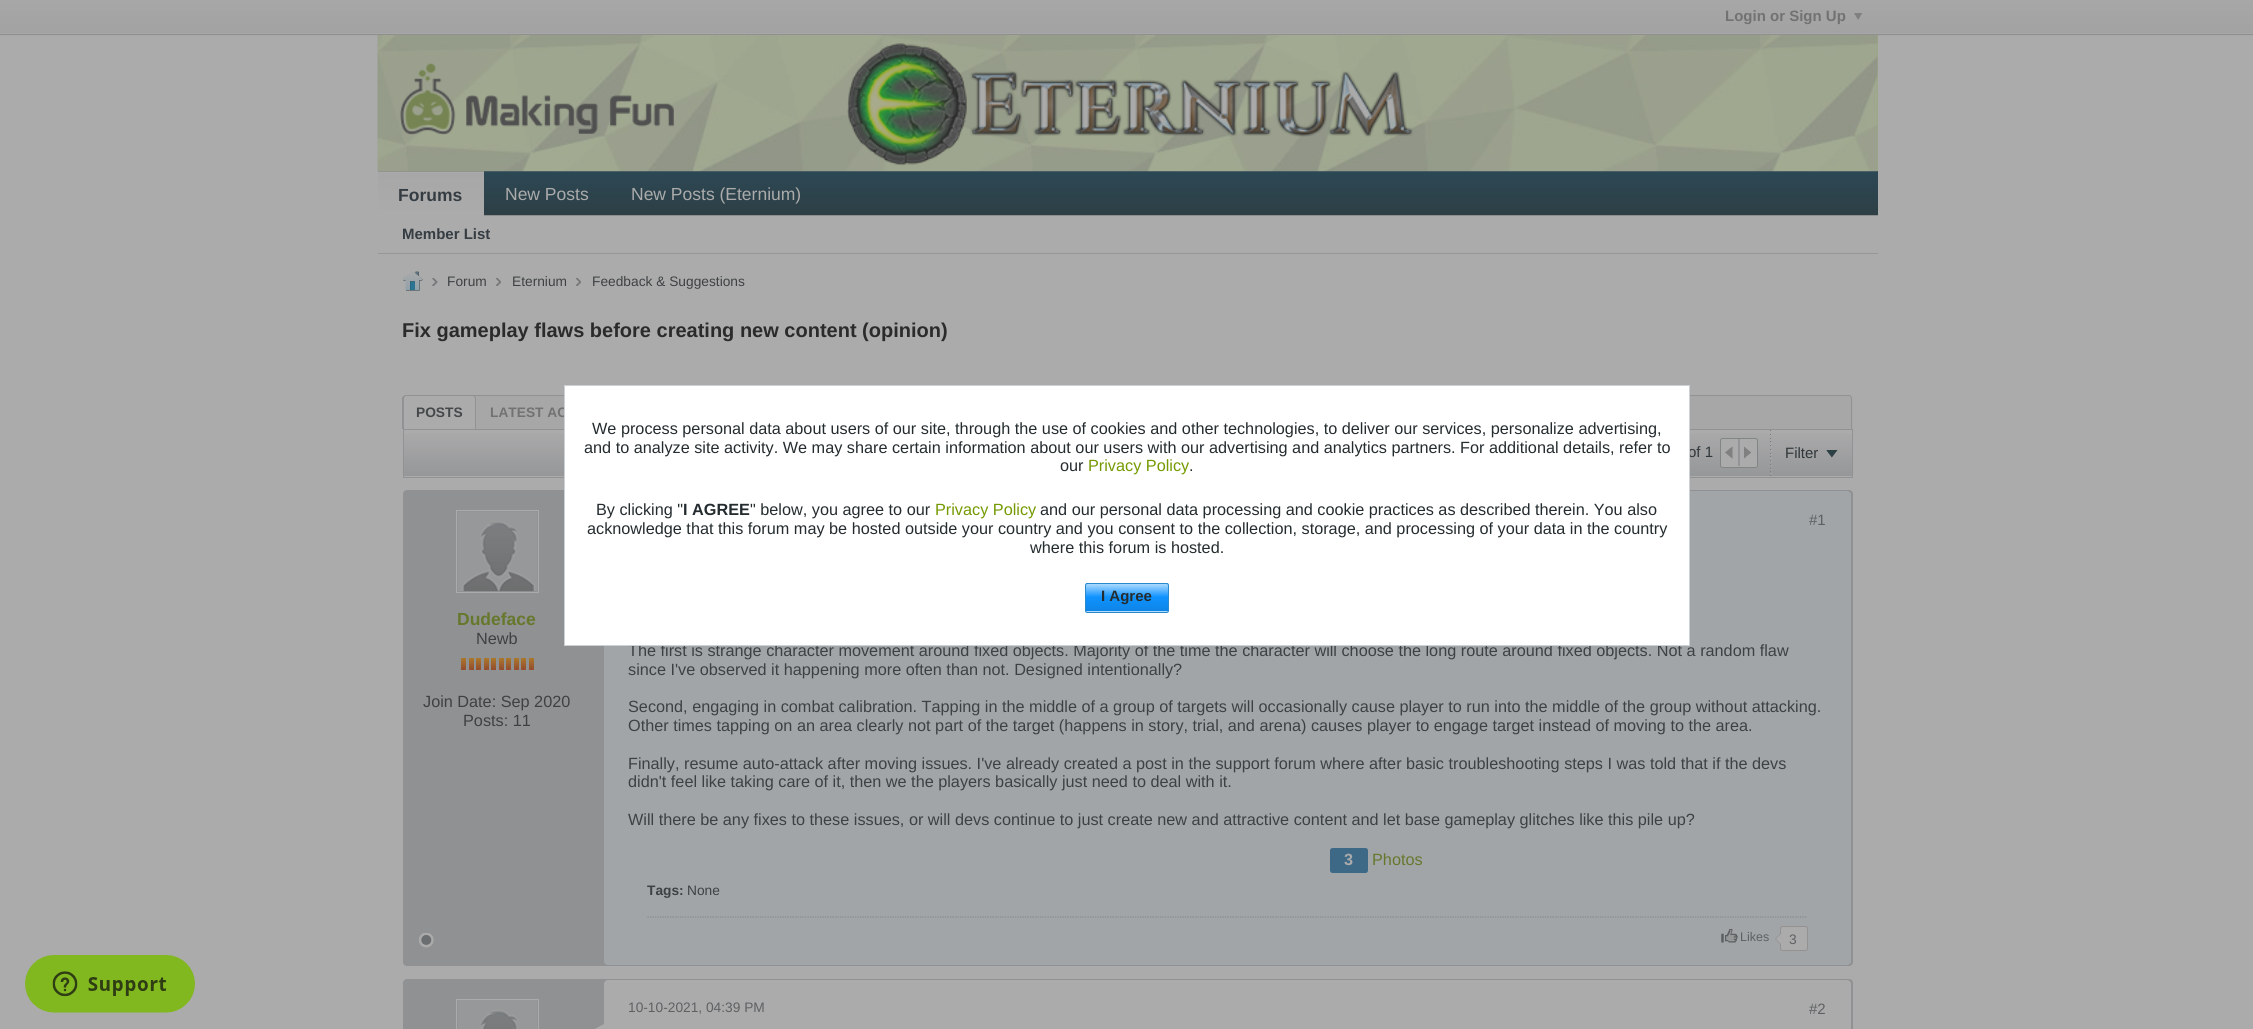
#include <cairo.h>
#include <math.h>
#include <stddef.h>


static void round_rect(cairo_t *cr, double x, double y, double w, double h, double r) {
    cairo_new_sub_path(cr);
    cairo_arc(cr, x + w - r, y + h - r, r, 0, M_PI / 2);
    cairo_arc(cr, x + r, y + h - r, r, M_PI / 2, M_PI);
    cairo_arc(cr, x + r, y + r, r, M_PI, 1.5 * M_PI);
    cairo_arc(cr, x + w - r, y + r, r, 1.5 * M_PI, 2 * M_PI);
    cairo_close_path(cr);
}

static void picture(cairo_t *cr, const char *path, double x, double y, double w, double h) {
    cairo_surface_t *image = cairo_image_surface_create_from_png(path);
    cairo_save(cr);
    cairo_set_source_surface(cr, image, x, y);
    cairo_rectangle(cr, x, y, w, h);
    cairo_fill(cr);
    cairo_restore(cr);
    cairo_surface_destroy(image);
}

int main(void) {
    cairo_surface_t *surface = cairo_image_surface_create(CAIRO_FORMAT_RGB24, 2253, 1029);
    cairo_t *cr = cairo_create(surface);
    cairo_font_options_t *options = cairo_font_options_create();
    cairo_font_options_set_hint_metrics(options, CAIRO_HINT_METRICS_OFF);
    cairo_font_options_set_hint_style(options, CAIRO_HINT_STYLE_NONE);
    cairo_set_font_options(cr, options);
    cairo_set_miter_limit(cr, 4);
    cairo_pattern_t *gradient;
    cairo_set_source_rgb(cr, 0.671, 0.671, 0.671);
    cairo_paint(cr);
    gradient = cairo_pattern_create_linear(1127, 0, 1127, 35);
    cairo_pattern_add_color_stop_rgba(gradient, 0, 0.655, 0.655, 0.655, 1);
    cairo_pattern_add_color_stop_rgba(gradient, 1, 0.639, 0.635, 0.635, 1);
    cairo_set_source(cr, gradient);
    cairo_pattern_destroy(gradient);
    cairo_rectangle(cr, 0, 0, 2253, 33);
    cairo_fill(cr);
    cairo_select_font_face(cr, "Liberation Sans", CAIRO_FONT_SLANT_NORMAL, CAIRO_FONT_WEIGHT_BOLD);
    cairo_set_font_size(cr, 15);
    cairo_set_source_rgb(cr, 0.447, 0.447, 0.447);
    cairo_move_to(cr, 1725, 21);
    cairo_show_text(cr, "Login or Sign Up");
    picture(cr, "img1.png", 1854, 13, 9, 7);
    cairo_set_source_rgb(cr, 0.659, 0.659, 0.659);
    cairo_rectangle(cr, 0, 33, 2253, 3);
    cairo_fill(cr);
    cairo_set_source_rgb(cr, 0.561, 0.561, 0.565);
    cairo_rectangle(cr, 0, 34, 2253, 1);
    cairo_fill(cr);
    cairo_set_source_rgb(cr, 0.608, 0.659, 0.506);
    cairo_rectangle(cr, 1877, 35, 1, 136);
    cairo_fill(cr);
    gradient = cairo_pattern_create_linear(1128, 171, 1128, 215);
    cairo_pattern_add_color_stop_rgba(gradient, 0, 0.173, 0.282, 0.333, 1);
    cairo_pattern_add_color_stop_rgba(gradient, 1, 0.18, 0.247, 0.271, 1);
    cairo_set_source(cr, gradient);
    cairo_pattern_destroy(gradient);
    cairo_rectangle(cr, 378, 171, 1500, 44);
    cairo_fill(cr);
    gradient = cairo_pattern_create_linear(431, 129, 431, 173);
    cairo_pattern_add_color_stop_rgba(gradient, 0, 0.655, 0.655, 0.655, 1);
    cairo_pattern_add_color_stop_rgba(gradient, 1, 0.671, 0.671, 0.671, 1);
    cairo_set_source(cr, gradient);
    cairo_pattern_destroy(gradient);
    cairo_new_path(cr);
    cairo_move_to(cr, 379, 171);
    cairo_line_to(cr, 483, 171);
    cairo_curve_to(cr, 483.5, 171, 484, 171.5, 484, 172);
    cairo_line_to(cr, 484, 173);
    cairo_line_to(cr, 378, 173);
    cairo_line_to(cr, 378, 172);
    cairo_curve_to(cr, 378, 171.5, 378.5, 171, 379, 171);
    cairo_close_path(cr);
    cairo_fill(cr);
    cairo_set_source_rgb(cr, 0.553, 0.561, 0.561);
    cairo_rectangle(cr, 379, 171, 105, 1);
    cairo_fill(cr);
    picture(cr, "img3.png", 377, 35, 1501, 137);
    picture(cr, "img2.png", 847, 43, 566, 123);
    picture(cr, "img4.png", 399, 63, 275, 72);
    cairo_rectangle(cr, 484, 215, 1394, 1);
    cairo_fill(cr);
    gradient = cairo_pattern_create_linear(431, 173, 431, 216);
    cairo_pattern_add_color_stop_rgba(gradient, 0, 0.655, 0.655, 0.655, 1);
    cairo_pattern_add_color_stop_rgba(gradient, 1, 0.671, 0.671, 0.671, 1);
    cairo_set_source(cr, gradient);
    cairo_pattern_destroy(gradient);
    cairo_rectangle(cr, 378, 173, 106, 42);
    cairo_fill(cr);
    cairo_set_font_size(cr, 17.5);
    cairo_set_source_rgb(cr, 0.208, 0.239, 0.263);
    cairo_move_to(cr, 398, 201);
    cairo_show_text(cr, "Forums");
    cairo_select_font_face(cr, "Liberation Sans", CAIRO_FONT_SLANT_NORMAL, CAIRO_FONT_WEIGHT_NORMAL);
    cairo_set_source_rgb(cr, 0.671, 0.671, 0.671);
    cairo_move_to(cr, 505, 200);
    cairo_show_text(cr, "New Posts");
    cairo_move_to(cr, 631, 200);
    cairo_show_text(cr, "New Posts (Eternium)");
    cairo_set_source_rgb(cr, 0.584, 0.588, 0.588);
    cairo_rectangle(cr, 378, 253, 1500, 1);
    cairo_fill(cr);
    cairo_save(cr);
    cairo_rectangle(cr, 403, 216, 87, 37);
    cairo_clip(cr);
    cairo_select_font_face(cr, "Liberation Sans", CAIRO_FONT_SLANT_NORMAL, CAIRO_FONT_WEIGHT_BOLD);
    cairo_set_font_size(cr, 15);
    cairo_set_source_rgb(cr, 0.208, 0.239, 0.263);
    cairo_move_to(cr, 402, 239);
    cairo_show_text(cr, "Member List");
    cairo_restore(cr);
    picture(cr, "img5.png", 403, 271, 20, 20);
    picture(cr, "img6.png", 432, 278, 6, 8);
    cairo_set_font_size(cr, 13.75);
    cairo_set_source_rgb(cr, 0.243, 0.255, 0.263);
    cairo_move_to(cr, 447, 286);
    cairo_show_text(cr, "Forum");
    picture(cr, "img7.png", 496, 278, 5, 8);
    cairo_move_to(cr, 512, 286);
    cairo_show_text(cr, "Eternium");
    picture(cr, "img7.png", 576, 278, 5, 8);
    cairo_move_to(cr, 592, 286);
    cairo_show_text(cr, "Feedback & Suggestions");
    cairo_select_font_face(cr, "Liberation Sans", CAIRO_FONT_SLANT_NORMAL, CAIRO_FONT_WEIGHT_BOLD);
    cairo_set_font_size(cr, 20);
    cairo_set_source_rgb(cr, 0.169, 0.169, 0.169);
    cairo_move_to(cr, 402, 337);
    cairo_show_text(cr, "Fix gameplay flaws before creating new content (opinion)");
    cairo_set_source_rgb(cr, 0.655, 0.655, 0.655);
    cairo_new_path(cr);
    cairo_move_to(cr, 407, 395);
    cairo_line_to(cr, 1849, 395);
    cairo_curve_to(cr, 1851, 395, 1853, 397, 1853, 399);
    cairo_line_to(cr, 1853, 429);
    cairo_line_to(cr, 403, 429);
    cairo_line_to(cr, 403, 399);
    cairo_curve_to(cr, 403, 397, 405, 395, 407, 395);
    cairo_close_path(cr);
    cairo_fill(cr);
    cairo_set_source_rgb(cr, 0.565, 0.573, 0.58);
    cairo_set_fill_rule(cr, CAIRO_FILL_RULE_EVEN_ODD);
    cairo_new_path(cr);
    cairo_move_to(cr, 406, 395);
    cairo_line_to(cr, 1849, 395);
    cairo_curve_to(cr, 1851, 395, 1852, 397, 1852, 399);
    cairo_line_to(cr, 1852, 429);
    cairo_line_to(cr, 402, 429);
    cairo_line_to(cr, 402, 399);
    cairo_curve_to(cr, 402, 397, 404, 395, 406, 395);
    cairo_close_path(cr);
    cairo_move_to(cr, 406, 396);
    cairo_line_to(cr, 1849, 396);
    cairo_curve_to(cr, 1850, 396, 1851, 397, 1851, 399);
    cairo_line_to(cr, 1851, 429);
    cairo_line_to(cr, 404, 429);
    cairo_line_to(cr, 404, 399);
    cairo_curve_to(cr, 404, 397, 405, 396, 406, 396);
    cairo_close_path(cr);
    cairo_fill(cr);
    cairo_set_source_rgb(cr, 0.671, 0.671, 0.671);
    cairo_new_path(cr);
    cairo_move_to(cr, 407, 395);
    cairo_line_to(cr, 472, 395);
    cairo_curve_to(cr, 474, 395, 476, 397, 476, 399);
    cairo_line_to(cr, 476, 429);
    cairo_line_to(cr, 403, 429);
    cairo_line_to(cr, 403, 399);
    cairo_curve_to(cr, 403, 397, 405, 395, 407, 395);
    cairo_close_path(cr);
    cairo_fill(cr);
    cairo_set_source_rgb(cr, 0.565, 0.573, 0.58);
    cairo_new_path(cr);
    cairo_move_to(cr, 406, 395);
    cairo_line_to(cr, 472, 395);
    cairo_curve_to(cr, 475, 395, 476, 397, 476, 399);
    cairo_line_to(cr, 476, 429);
    cairo_line_to(cr, 402, 429);
    cairo_line_to(cr, 402, 399);
    cairo_curve_to(cr, 402, 397, 404, 395, 406, 395);
    cairo_close_path(cr);
    cairo_move_to(cr, 406, 396);
    cairo_line_to(cr, 472, 396);
    cairo_curve_to(cr, 474, 396, 475, 397, 475, 399);
    cairo_line_to(cr, 475, 429);
    cairo_line_to(cr, 404, 429);
    cairo_line_to(cr, 404, 399);
    cairo_curve_to(cr, 404, 397, 405, 396, 406, 396);
    cairo_close_path(cr);
    cairo_fill(cr);
    cairo_set_font_size(cr, 13.75);
    cairo_set_source_rgb(cr, 0.271, 0.282, 0.29);
    cairo_move_to(cr, 416, 417);
    cairo_show_text(cr, "POSTS");
    cairo_set_source_rgb(cr, 0.447, 0.447, 0.447);
    cairo_move_to(cr, 490, 417);
    cairo_show_text(cr, "LATEST AC");
    gradient = cairo_pattern_create_linear(1128, 430, 1128, 476);
    cairo_pattern_add_color_stop_rgba(gradient, 0, 0.667, 0.667, 0.671, 1);
    cairo_pattern_add_color_stop_rgba(gradient, 1, 0.588, 0.592, 0.596, 1);
    cairo_set_source(cr, gradient);
    cairo_pattern_destroy(gradient);
    cairo_rectangle(cr, 404, 433, 1448, 43);
    cairo_fill(cr);
    cairo_rectangle(cr, 403.5, 429.5, 1449, 48);
    cairo_set_source_rgb(cr, 0.565, 0.573, 0.58);
    cairo_set_line_width(cr, 1);
    cairo_stroke(cr);
    cairo_select_font_face(cr, "Liberation Sans", CAIRO_FONT_SLANT_NORMAL, CAIRO_FONT_WEIGHT_NORMAL);
    cairo_set_font_size(cr, 15);
    cairo_set_source_rgb(cr, 0.188, 0.212, 0.224);
    cairo_move_to(cr, 1688, 457);
    cairo_show_text(cr, "of 1");
    cairo_set_source_rgb(cr, 0.671, 0.671, 0.671);
    round_rect(cr, 1720.5, 438.5, 37, 29, 2);
    cairo_fill_preserve(cr);
    cairo_set_source_rgb(cr, 0.51, 0.522, 0.525);
    cairo_stroke(cr);
    cairo_set_source_rgb(cr, 0.573, 0.58, 0.584);
    cairo_rectangle(cr, 1738, 439, 2, 27);
    cairo_fill(cr);
    picture(cr, "img8.png", 1725, 446, 8, 13);
    picture(cr, "img9.png", 1744, 446, 7, 13);
    picture(cr, "img10.png", 1770, 430, 1, 46);
    picture(cr, "img11.png", 1771, 435, 1, 39);
    cairo_set_source_rgb(cr, 0.188, 0.212, 0.224);
    cairo_move_to(cr, 1785, 458);
    cairo_show_text(cr, "Filter");
    picture(cr, "img12.png", 1826, 450, 12, 8);
    cairo_set_source_rgb(cr, 0.561, 0.569, 0.573);
    round_rect(cr, 403.5, 490.5, 1449, 475, 3.5);
    cairo_fill_preserve(cr);
    cairo_stroke(cr);
    cairo_rectangle(cr, 456.5, 510.5, 82, 82);
    cairo_set_source_rgb(cr, 0.671, 0.671, 0.671);
    cairo_stroke(cr);
    picture(cr, "img13.png", 457, 511, 81, 81);
    cairo_select_font_face(cr, "Liberation Sans", CAIRO_FONT_SLANT_NORMAL, CAIRO_FONT_WEIGHT_BOLD);
    cairo_set_font_size(cr, 17.5);
    cairo_set_source_rgb(cr, 0.4, 0.471, 0.173);
    cairo_move_to(cr, 457, 625);
    cairo_show_text(cr, "Dudeface");
    cairo_select_font_face(cr, "Liberation Sans", CAIRO_FONT_SLANT_NORMAL, CAIRO_FONT_WEIGHT_NORMAL);
    cairo_set_font_size(cr, 16.25);
    cairo_set_source_rgb(cr, 0.243, 0.255, 0.263);
    cairo_move_to(cr, 476, 644);
    cairo_show_text(cr, "Newb");
    gradient = cairo_pattern_create_linear(464, 658, 464, 670);
    cairo_pattern_add_color_stop_rgba(gradient, 0, 0.671, 0.471, 0.169, 1);
    cairo_pattern_add_color_stop_rgba(gradient, 1, 0.576, 0.298, 0.176, 1);
    cairo_set_source(cr, gradient);
    cairo_pattern_destroy(gradient);
    cairo_rectangle(cr, 461, 658, 5, 12);
    cairo_fill(cr);
    gradient = cairo_pattern_create_linear(471, 658, 471, 670);
    cairo_pattern_add_color_stop_rgba(gradient, 0, 0.671, 0.471, 0.169, 1);
    cairo_pattern_add_color_stop_rgba(gradient, 1, 0.576, 0.298, 0.176, 1);
    cairo_set_source(cr, gradient);
    cairo_pattern_destroy(gradient);
    cairo_rectangle(cr, 469, 658, 5, 12);
    cairo_fill(cr);
    gradient = cairo_pattern_create_linear(479, 658, 479, 670);
    cairo_pattern_add_color_stop_rgba(gradient, 0, 0.671, 0.471, 0.169, 1);
    cairo_pattern_add_color_stop_rgba(gradient, 1, 0.576, 0.298, 0.176, 1);
    cairo_set_source(cr, gradient);
    cairo_pattern_destroy(gradient);
    cairo_rectangle(cr, 476, 658, 5, 12);
    cairo_fill(cr);
    gradient = cairo_pattern_create_linear(486, 658, 486, 670);
    cairo_pattern_add_color_stop_rgba(gradient, 0, 0.671, 0.471, 0.169, 1);
    cairo_pattern_add_color_stop_rgba(gradient, 1, 0.576, 0.298, 0.176, 1);
    cairo_set_source(cr, gradient);
    cairo_pattern_destroy(gradient);
    cairo_rectangle(cr, 484, 658, 5, 12);
    cairo_fill(cr);
    gradient = cairo_pattern_create_linear(494, 658, 494, 670);
    cairo_pattern_add_color_stop_rgba(gradient, 0, 0.671, 0.471, 0.169, 1);
    cairo_pattern_add_color_stop_rgba(gradient, 1, 0.576, 0.298, 0.176, 1);
    cairo_set_source(cr, gradient);
    cairo_pattern_destroy(gradient);
    cairo_rectangle(cr, 491, 658, 5, 12);
    cairo_fill(cr);
    gradient = cairo_pattern_create_linear(501, 658, 501, 670);
    cairo_pattern_add_color_stop_rgba(gradient, 0, 0.671, 0.471, 0.169, 1);
    cairo_pattern_add_color_stop_rgba(gradient, 1, 0.576, 0.298, 0.176, 1);
    cairo_set_source(cr, gradient);
    cairo_pattern_destroy(gradient);
    cairo_rectangle(cr, 499, 658, 5, 12);
    cairo_fill(cr);
    gradient = cairo_pattern_create_linear(509, 658, 509, 670);
    cairo_pattern_add_color_stop_rgba(gradient, 0, 0.671, 0.471, 0.169, 1);
    cairo_pattern_add_color_stop_rgba(gradient, 1, 0.576, 0.298, 0.176, 1);
    cairo_set_source(cr, gradient);
    cairo_pattern_destroy(gradient);
    cairo_rectangle(cr, 506, 658, 5, 12);
    cairo_fill(cr);
    gradient = cairo_pattern_create_linear(516, 658, 516, 670);
    cairo_pattern_add_color_stop_rgba(gradient, 0, 0.671, 0.471, 0.169, 1);
    cairo_pattern_add_color_stop_rgba(gradient, 1, 0.576, 0.298, 0.176, 1);
    cairo_set_source(cr, gradient);
    cairo_pattern_destroy(gradient);
    cairo_rectangle(cr, 514, 658, 5, 12);
    cairo_fill(cr);
    gradient = cairo_pattern_create_linear(524, 658, 524, 670);
    cairo_pattern_add_color_stop_rgba(gradient, 0, 0.671, 0.471, 0.169, 1);
    cairo_pattern_add_color_stop_rgba(gradient, 1, 0.576, 0.298, 0.176, 1);
    cairo_set_source(cr, gradient);
    cairo_pattern_destroy(gradient);
    cairo_rectangle(cr, 521, 658, 5, 12);
    cairo_fill(cr);
    gradient = cairo_pattern_create_linear(531, 658, 531, 670);
    cairo_pattern_add_color_stop_rgba(gradient, 0, 0.671, 0.471, 0.169, 1);
    cairo_pattern_add_color_stop_rgba(gradient, 1, 0.576, 0.298, 0.176, 1);
    cairo_set_source(cr, gradient);
    cairo_pattern_destroy(gradient);
    cairo_rectangle(cr, 529, 658, 5, 12);
    cairo_fill(cr);
    cairo_set_source_rgb(cr, 0.243, 0.255, 0.263);
    cairo_move_to(cr, 423, 707);
    cairo_show_text(cr, "Join Date: Sep 2020");
    cairo_move_to(cr, 463, 726);
    cairo_show_text(cr, "Posts: 11");
    picture(cr, "img14.png", 419, 933, 15, 15);
    cairo_set_source_rgb(cr, 0.631, 0.647, 0.659);
    round_rect(cr, 604, 491, 1247, 474, 4);
    cairo_fill(cr);
    cairo_set_font_size(cr, 15);
    cairo_set_source_rgb(cr, 0.369, 0.376, 0.384);
    cairo_move_to(cr, 1809, 525);
    cairo_show_text(cr, "#1");
    cairo_set_font_size(cr, 16.25);
    cairo_set_source_rgb(cr, 0.243, 0.255, 0.263);
    cairo_move_to(cr, 628, 656);
    cairo_show_text(cr, "The first is strange character movement around fixed objects. Majority of the time the character will choose the long route around fixed objects. Not a random flaw");
    cairo_move_to(cr, 628, 675);
    cairo_show_text(cr, "since I've observed it happening more often than not. Designed intentionally?");
    cairo_move_to(cr, 628, 712);
    cairo_show_text(cr, "Second, engaging in combat calibration. Tapping in the middle of a group of targets will occasionally cause player to run into the middle of the group without attacking.");
    cairo_move_to(cr, 628, 731);
    cairo_show_text(cr, "Other times tapping on an area clearly not part of the target (happens in story, trial, and arena) causes player to engage target instead of moving to the area.");
    cairo_move_to(cr, 628, 769);
    cairo_show_text(cr, "Finally, resume auto-attack after moving issues. I've already created a post in the support forum where after basic troubleshooting steps I was told that if the devs");
    cairo_move_to(cr, 628, 787);
    cairo_show_text(cr, "didn't feel like taking care of it, then we the players basically just need to deal with it.");
    cairo_move_to(cr, 628, 825);
    cairo_show_text(cr, "Will there be any fixes to these issues, or will devs continue to just create new and attractive content and let base gameplay glitches like this pile up?");
    cairo_set_source_rgb(cr, 0.239, 0.408, 0.525);
    round_rect(cr, 1330, 848, 38, 25, 2.5);
    cairo_fill(cr);
    cairo_select_font_face(cr, "Liberation Sans", CAIRO_FONT_SLANT_NORMAL, CAIRO_FONT_WEIGHT_BOLD);
    cairo_set_source_rgb(cr, 0.671, 0.671, 0.671);
    cairo_move_to(cr, 1344, 865);
    cairo_show_text(cr, "3");
    cairo_select_font_face(cr, "Liberation Sans", CAIRO_FONT_SLANT_NORMAL, CAIRO_FONT_WEIGHT_NORMAL);
    cairo_set_source_rgb(cr, 0.4, 0.471, 0.173);
    cairo_move_to(cr, 1372, 865);
    cairo_show_text(cr, "Photos");
    cairo_select_font_face(cr, "Liberation Sans", CAIRO_FONT_SLANT_NORMAL, CAIRO_FONT_WEIGHT_BOLD);
    cairo_set_font_size(cr, 13.75);
    cairo_set_source_rgb(cr, 0.243, 0.255, 0.263);
    cairo_move_to(cr, 647, 895);
    cairo_show_text(cr, "Tags:");
    cairo_select_font_face(cr, "Liberation Sans", CAIRO_FONT_SLANT_NORMAL, CAIRO_FONT_WEIGHT_NORMAL);
    cairo_move_to(cr, 687, 895);
    cairo_show_text(cr, "None");
    cairo_new_path(cr);
    cairo_move_to(cr, 647.5, 917);
    cairo_line_to(cr, 1807.5, 917);
    cairo_set_source_rgb(cr, 0.529, 0.537, 0.541);
    cairo_set_line_width(cr, 1.2);
    cairo_set_dash(cr, (double[]){1.25, 1.25}, 2, 0);
    cairo_stroke(cr);
    picture(cr, "img15.png", 1721, 929, 17, 14);
    cairo_set_font_size(cr, 12.5);
    cairo_set_source_rgb(cr, 0.369, 0.376, 0.384);
    cairo_move_to(cr, 1740, 941);
    cairo_show_text(cr, "Likes");
    cairo_set_source_rgb(cr, 0.671, 0.671, 0.671);
    round_rect(cr, 1780.5, 926.5, 27, 24, 2);
    cairo_fill_preserve(cr);
    cairo_set_source_rgb(cr, 0.58, 0.569, 0.569);
    cairo_set_line_width(cr, 1);
    cairo_set_dash(cr, NULL, 0, 0);
    cairo_stroke(cr);
    cairo_set_fill_rule(cr, CAIRO_FILL_RULE_WINDING);
    cairo_new_path(cr);
    cairo_move_to(cr, 1780, 934);
    cairo_line_to(cr, 1780, 944);
    cairo_line_to(cr, 1775, 939);
    cairo_close_path(cr);
    cairo_fill(cr);
    cairo_set_source_rgb(cr, 0.671, 0.671, 0.671);
    cairo_new_path(cr);
    cairo_move_to(cr, 1781, 934);
    cairo_line_to(cr, 1781, 944);
    cairo_line_to(cr, 1776, 939);
    cairo_close_path(cr);
    cairo_fill(cr);
    cairo_set_font_size(cr, 13.75);
    cairo_set_source_rgb(cr, 0.369, 0.376, 0.384);
    cairo_move_to(cr, 1789, 944);
    cairo_show_text(cr, "3");
    cairo_set_source_rgb(cr, 0.561, 0.569, 0.573);
    round_rect(cr, 403.5, 979.5, 1449, 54, 3.5);
    cairo_fill_preserve(cr);
    cairo_stroke(cr);
    cairo_rectangle(cr, 456.5, 999.5, 82, 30);
    cairo_set_source_rgb(cr, 0.671, 0.671, 0.671);
    cairo_stroke(cr);
    picture(cr, "img16.png", 457, 1000, 81, 29);
    round_rect(cr, 604, 980, 1247, 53, 4);
    cairo_fill(cr);
    cairo_set_source_rgb(cr, 0.369, 0.376, 0.384);
    cairo_move_to(cr, 628, 1012);
    cairo_show_text(cr, "10-10-2021, 04:39 PM");
    cairo_set_font_size(cr, 15);
    cairo_move_to(cr, 1809, 1014);
    cairo_show_text(cr, "#2");
    cairo_set_source_rgb(cr, 0.671, 0.671, 0.671);
    cairo_new_path(cr);
    cairo_move_to(cr, 604, 1024);
    cairo_line_to(cr, 604, 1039);
    cairo_line_to(cr, 591, 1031);
    cairo_close_path(cr);
    cairo_fill(cr);
    cairo_set_source_rgb(cr, 1, 1, 1);
    cairo_rectangle(cr, 564.5, 385.5, 1125, 260);
    cairo_fill_preserve(cr);
    cairo_set_source_rgb(cr, 0.8, 0.82, 0.835);
    cairo_stroke(cr);
    cairo_set_font_size(cr, 16.25);
    cairo_set_source_rgb(cr, 0.145, 0.173, 0.184);
    cairo_move_to(cr, 592, 434);
    cairo_show_text(cr, "We process personal data about users of our site, through the use of cookies and other technologies, to deliver our services, personalize advertising,");
    cairo_move_to(cr, 584, 453);
    cairo_show_text(cr, "and to analyze site activity. We may share certain information about our users with our advertising and analytics partners. For additional details, refer to");
    cairo_move_to(cr, 1060, 471);
    cairo_show_text(cr, "our");
    cairo_set_source_rgb(cr, 0.459, 0.604, 0.004);
    cairo_move_to(cr, 1088, 471);
    cairo_show_text(cr, "Privacy Policy");
    cairo_set_source_rgb(cr, 0.145, 0.173, 0.184);
    cairo_move_to(cr, 1189, 471);
    cairo_show_text(cr, ".");
    cairo_move_to(cr, 596, 515);
    cairo_show_text(cr, "By clicking \"");
    cairo_select_font_face(cr, "Liberation Sans", CAIRO_FONT_SLANT_NORMAL, CAIRO_FONT_WEIGHT_BOLD);
    cairo_move_to(cr, 683, 515);
    cairo_show_text(cr, "I AGREE");
    cairo_select_font_face(cr, "Liberation Sans", CAIRO_FONT_SLANT_NORMAL, CAIRO_FONT_WEIGHT_NORMAL);
    cairo_move_to(cr, 750, 515);
    cairo_show_text(cr, "\" below, you agree to our");
    cairo_set_source_rgb(cr, 0.459, 0.604, 0.004);
    cairo_move_to(cr, 935, 515);
    cairo_show_text(cr, "Privacy Policy");
    cairo_set_source_rgb(cr, 0.145, 0.173, 0.184);
    cairo_move_to(cr, 1040, 515);
    cairo_show_text(cr, "and our personal data processing and cookie practices as described therein. You also");
    cairo_move_to(cr, 587, 534);
    cairo_show_text(cr, "acknowledge that this forum may be hosted outside your country and you consent to the collection, storage, and processing of your data in the country");
    cairo_move_to(cr, 1030, 553);
    cairo_show_text(cr, "where this forum is hosted.");
    cairo_set_source_rgb(cr, 0.059, 0.576, 1);
    round_rect(cr, 1085, 583, 84, 30, 2.5);
    cairo_fill(cr);
    gradient = cairo_pattern_create_linear(1127, 611, 1127, 583);
    cairo_pattern_add_color_stop_rgba(gradient, 0, 0, 0, 0, 0.1);
    cairo_pattern_add_color_stop_rgba(gradient, 0.5, 0, 0, 0, 0);
    cairo_pattern_add_color_stop_rgba(gradient, 0.5, 1, 1, 1, 0);
    cairo_pattern_add_color_stop_rgba(gradient, 1, 1, 1, 1, 0.7);
    cairo_set_source(cr, gradient);
    cairo_pattern_destroy(gradient);
    cairo_rectangle(cr, 1085, 584, 84, 27);
    cairo_fill(cr);
    cairo_save(cr);
    round_rect(cr, 1085, 583, 84, 30, 2.5);
    cairo_clip(cr);
    gradient = cairo_pattern_create_linear(1127, 638, 1127, 611);
    cairo_pattern_add_color_stop_rgba(gradient, 0, 0, 0, 0, 0.1);
    cairo_pattern_add_color_stop_rgba(gradient, 0.5, 0, 0, 0, 0);
    cairo_pattern_add_color_stop_rgba(gradient, 0.5, 1, 1, 1, 0);
    cairo_pattern_add_color_stop_rgba(gradient, 1, 1, 1, 1, 0.7);
    cairo_set_source(cr, gradient);
    cairo_pattern_destroy(gradient);
    cairo_rectangle(cr, 1085, 611, 84, 2);
    cairo_fill(cr);
    cairo_restore(cr);
    round_rect(cr, 1085.5, 583.5, 83, 29, 2);
    cairo_set_source_rgb(cr, 0.161, 0.537, 0.8);
    cairo_stroke(cr);
    cairo_select_font_face(cr, "Liberation Sans", CAIRO_FONT_SLANT_NORMAL, CAIRO_FONT_WEIGHT_BOLD);
    cairo_set_font_size(cr, 15);
    cairo_set_source_rgb(cr, 0.145, 0.173, 0.184);
    cairo_move_to(cr, 1101, 601);
    cairo_show_text(cr, "I Agree");
    picture(cr, "img17.png", 25, 955, 170, 58);
    cairo_surface_write_to_png(surface, "page.png");
    cairo_font_options_destroy(options);
    cairo_destroy(cr);
    cairo_surface_destroy(surface);
    return 0;
}
